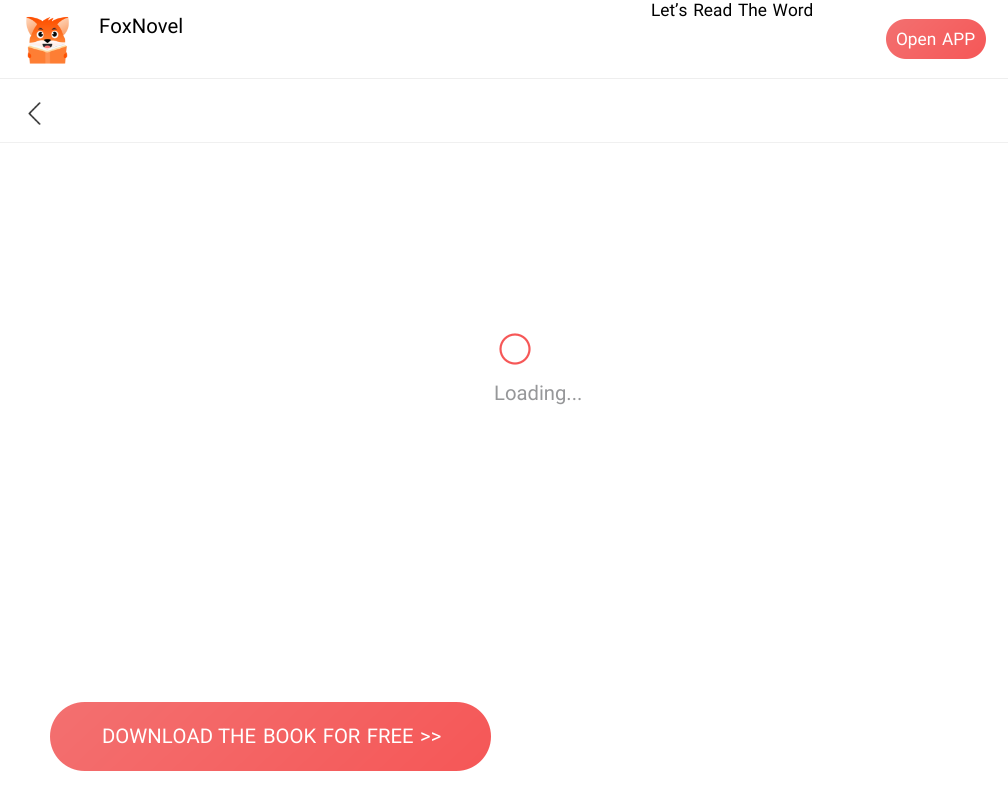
#include <cairo.h>
#include <math.h>
#include <stddef.h>


static void spaced_text(cairo_t *cr, double x, double y, const char *s, double letter, double word) {
    cairo_move_to(cr, x, y);
    while (*s) {
        char ch[5] = {0};
        int n = 0;
        do ch[n++] = *s++; while ((*s & 0xC0) == 0x80);
        cairo_show_text(cr, ch);
        cairo_rel_move_to(cr, letter + word * (*ch == ' '), 0);
    }
}

static void round_rect(cairo_t *cr, double x, double y, double w, double h, double r) {
    cairo_new_sub_path(cr);
    cairo_arc(cr, x + w - r, y + h - r, r, 0, M_PI / 2);
    cairo_arc(cr, x + r, y + h - r, r, M_PI / 2, M_PI);
    cairo_arc(cr, x + r, y + r, r, M_PI, 1.5 * M_PI);
    cairo_arc(cr, x + w - r, y + r, r, 1.5 * M_PI, 2 * M_PI);
    cairo_close_path(cr);
}

static void picture(cairo_t *cr, const char *path, double x, double y, double w, double h) {
    cairo_surface_t *image = cairo_image_surface_create_from_png(path);
    cairo_save(cr);
    cairo_set_source_surface(cr, image, x, y);
    cairo_rectangle(cr, x, y, w, h);
    cairo_fill(cr);
    cairo_restore(cr);
    cairo_surface_destroy(image);
}

int main(void) {
    cairo_surface_t *surface = cairo_image_surface_create(CAIRO_FORMAT_RGB24, 1008, 793);
    cairo_t *cr = cairo_create(surface);
    cairo_font_options_t *options = cairo_font_options_create();
    cairo_font_options_set_hint_metrics(options, CAIRO_HINT_METRICS_OFF);
    cairo_font_options_set_hint_style(options, CAIRO_HINT_STYLE_NONE);
    cairo_set_font_options(cr, options);
    cairo_set_miter_limit(cr, 4);
    cairo_pattern_t *gradient;
    cairo_set_source_rgb(cr, 1, 1, 1);
    cairo_paint(cr);
    cairo_set_source_rgb(cr, 0.933, 0.933, 0.933);
    cairo_rectangle(cr, 0, 78, 1008, 1);
    cairo_fill(cr);
    cairo_select_font_face(cr, "Roboto", CAIRO_FONT_SLANT_NORMAL, CAIRO_FONT_WEIGHT_NORMAL);
    cairo_set_font_size(cr, 17.25);
    cairo_set_source_rgb(cr, 0, 0, 0);
    spaced_text(cr, 651, 16, "Let’s Read The Word", 0, 1.5);
    picture(cr, "img1.png", 26, 16, 43, 48);
    cairo_set_font_size(cr, 20.25);
    cairo_move_to(cr, 99, 33);
    cairo_show_text(cr, "FoxNovel");
    gradient = cairo_pattern_create_linear(903, 3.4, 969, 75);
    cairo_pattern_add_color_stop_rgba(gradient, 0, 0.953, 0.439, 0.439, 1);
    cairo_pattern_add_color_stop_rgba(gradient, 1, 0.961, 0.341, 0.341, 1);
    cairo_set_source(cr, gradient);
    cairo_pattern_destroy(gradient);
    round_rect(cr, 886, 19, 100, 40, 20);
    cairo_fill(cr);
    cairo_set_font_size(cr, 17.25);
    cairo_set_source_rgb(cr, 1, 1, 1);
    spaced_text(cr, 896, 45, "Open APP", 0, 1.5);
    cairo_set_source_rgb(cr, 0.941, 0.941, 0.941);
    cairo_rectangle(cr, 0, 142, 1008, 1);
    cairo_fill(cr);
    picture(cr, "img2.png", 28, 102, 13, 23);
    cairo_arc(cr, 515, 349, 14.5, 0, 2 * M_PI);
    cairo_set_source_rgb(cr, 0.961, 0.341, 0.341);
    cairo_set_line_width(cr, 2.2);
    cairo_stroke(cr);
    cairo_set_font_size(cr, 20.25);
    cairo_set_source_rgb(cr, 0.588, 0.592, 0.6);
    cairo_move_to(cr, 494, 400);
    cairo_show_text(cr, "Loading...");
    gradient = cairo_pattern_create_linear(151, 608, 390, 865);
    cairo_pattern_add_color_stop_rgba(gradient, 0, 0.953, 0.439, 0.439, 1);
    cairo_pattern_add_color_stop_rgba(gradient, 1, 0.961, 0.341, 0.341, 1);
    cairo_set_source(cr, gradient);
    cairo_pattern_destroy(gradient);
    round_rect(cr, 50, 702, 441, 69, 34.5);
    cairo_fill(cr);
    cairo_set_source_rgb(cr, 1, 1, 1);
    cairo_move_to(cr, 102, 743);
    cairo_show_text(cr, "DOWNLOAD");
    cairo_move_to(cr, 218, 743);
    cairo_show_text(cr, "THE");
    spaced_text(cr, 263, 743, "BOOK FOR FREE >>", 0, 1.5);
    cairo_surface_write_to_png(surface, "page.png");
    cairo_font_options_destroy(options);
    cairo_destroy(cr);
    cairo_surface_destroy(surface);
    return 0;
}
